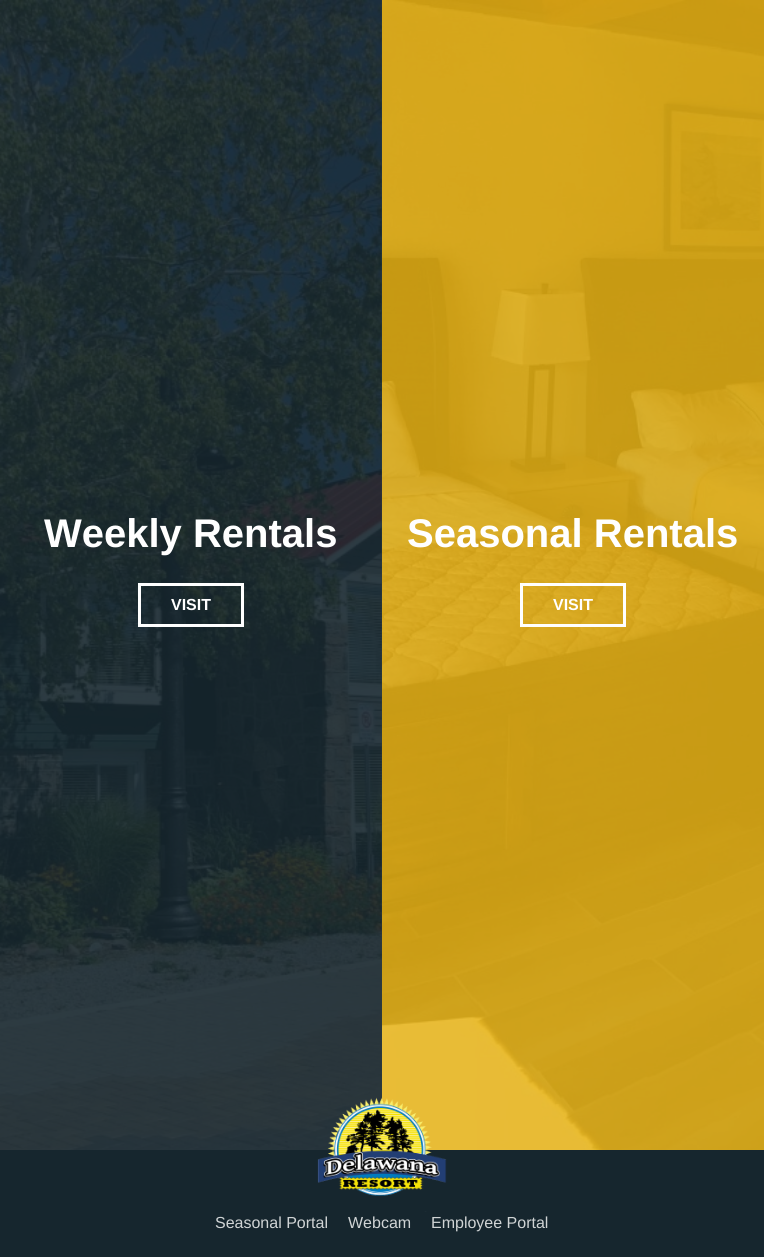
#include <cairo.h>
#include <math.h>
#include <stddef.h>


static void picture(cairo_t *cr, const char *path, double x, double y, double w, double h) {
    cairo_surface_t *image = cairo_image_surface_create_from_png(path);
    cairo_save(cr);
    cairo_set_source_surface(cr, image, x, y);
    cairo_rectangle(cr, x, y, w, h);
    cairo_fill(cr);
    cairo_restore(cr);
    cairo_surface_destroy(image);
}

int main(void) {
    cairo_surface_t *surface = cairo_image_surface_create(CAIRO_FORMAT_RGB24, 764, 1257);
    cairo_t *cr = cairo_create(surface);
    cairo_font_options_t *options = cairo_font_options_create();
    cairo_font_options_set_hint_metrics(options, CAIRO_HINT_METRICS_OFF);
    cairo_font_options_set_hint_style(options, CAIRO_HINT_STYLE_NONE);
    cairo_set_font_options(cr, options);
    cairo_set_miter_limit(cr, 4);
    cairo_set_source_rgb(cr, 0.176, 0.235, 0.263);
    cairo_paint(cr);
    picture(cr, "img1.png", 0, 0, 382, 1150);
    cairo_select_font_face(cr, "Liberation Sans", CAIRO_FONT_SLANT_NORMAL, CAIRO_FONT_WEIGHT_BOLD);
    cairo_set_font_size(cr, 40);
    cairo_set_source_rgb(cr, 1, 1, 1);
    cairo_move_to(cr, 44, 547);
    cairo_show_text(cr, "Weekly Rentals");
    cairo_rectangle(cr, 139.5, 584.5, 103, 41);
    cairo_set_line_width(cr, 3);
    cairo_stroke(cr);
    cairo_set_font_size(cr, 16);
    cairo_move_to(cr, 171, 610);
    cairo_show_text(cr, "VISIT");
    picture(cr, "img2.png", 382, 0, 382, 1150);
    cairo_set_font_size(cr, 40);
    cairo_move_to(cr, 407, 547);
    cairo_show_text(cr, "Seasonal Rentals");
    cairo_rectangle(cr, 521.5, 584.5, 103, 41);
    cairo_stroke(cr);
    cairo_set_font_size(cr, 16);
    cairo_move_to(cr, 553, 610);
    cairo_show_text(cr, "VISIT");
    cairo_set_source_rgb(cr, 0.086, 0.149, 0.18);
    cairo_rectangle(cr, 0, 1150, 764, 107);
    cairo_fill(cr);
    picture(cr, "img3.png", 317, 1097, 130, 115);
    cairo_select_font_face(cr, "Liberation Sans", CAIRO_FONT_SLANT_NORMAL, CAIRO_FONT_WEIGHT_NORMAL);
    cairo_set_source_rgb(cr, 0.816, 0.831, 0.835);
    cairo_move_to(cr, 215, 1228);
    cairo_show_text(cr, "Seasonal Portal");
    cairo_move_to(cr, 348, 1228);
    cairo_show_text(cr, "Webcam");
    cairo_move_to(cr, 431, 1228);
    cairo_show_text(cr, "Employee Portal");
    cairo_surface_write_to_png(surface, "page.png");
    cairo_font_options_destroy(options);
    cairo_destroy(cr);
    cairo_surface_destroy(surface);
    return 0;
}
